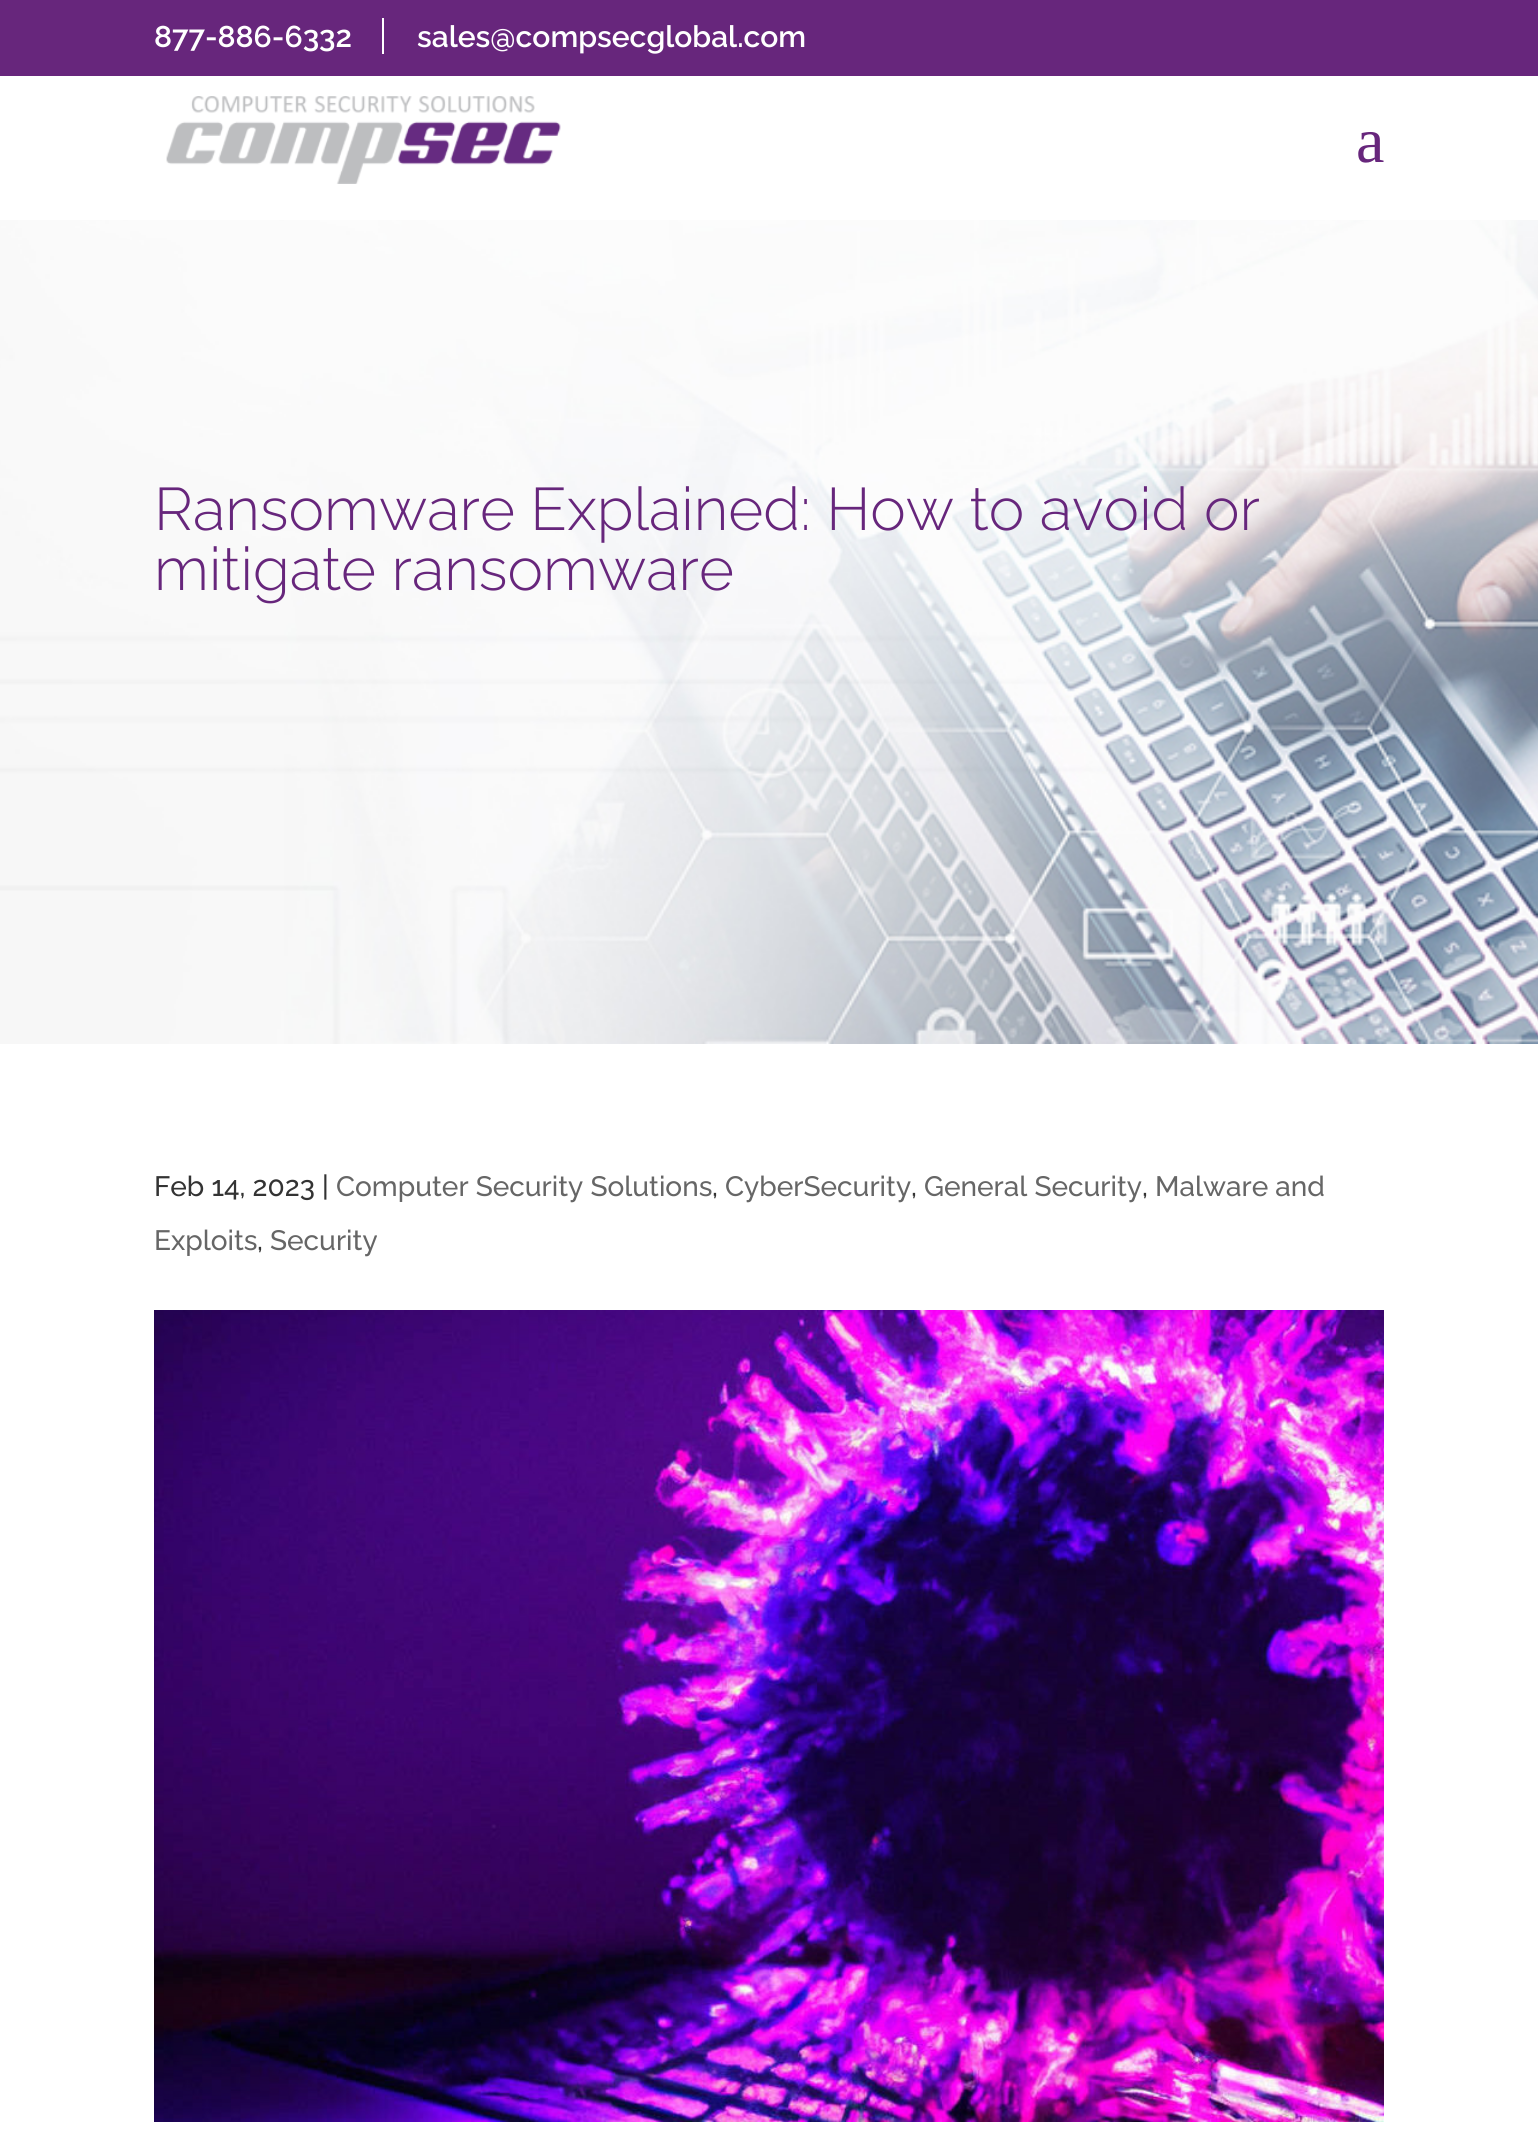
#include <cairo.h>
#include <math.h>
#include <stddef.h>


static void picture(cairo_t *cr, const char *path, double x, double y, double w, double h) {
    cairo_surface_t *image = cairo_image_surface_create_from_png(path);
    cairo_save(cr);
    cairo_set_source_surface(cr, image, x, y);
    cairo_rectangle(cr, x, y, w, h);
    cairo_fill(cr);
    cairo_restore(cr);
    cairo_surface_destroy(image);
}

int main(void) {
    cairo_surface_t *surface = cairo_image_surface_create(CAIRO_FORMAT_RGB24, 1538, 2152);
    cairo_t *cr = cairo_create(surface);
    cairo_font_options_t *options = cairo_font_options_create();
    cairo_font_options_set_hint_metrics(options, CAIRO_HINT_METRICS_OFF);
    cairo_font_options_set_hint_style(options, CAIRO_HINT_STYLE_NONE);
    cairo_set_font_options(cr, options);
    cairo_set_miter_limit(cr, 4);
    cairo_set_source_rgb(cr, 1, 1, 1);
    cairo_paint(cr);
    cairo_set_source_rgb(cr, 0.404, 0.149, 0.486);
    cairo_rectangle(cr, 0, 0, 1538, 76);
    cairo_fill(cr);
    cairo_select_font_face(cr, "Raleway SemiBold", CAIRO_FONT_SLANT_NORMAL, CAIRO_FONT_WEIGHT_NORMAL);
    cairo_set_font_size(cr, 30);
    cairo_set_source_rgb(cr, 1, 1, 1);
    cairo_move_to(cr, 154, 47);
    cairo_show_text(cr, "877-886-6332");
    cairo_rectangle(cr, 382, 18, 2, 36);
    cairo_fill(cr);
    cairo_move_to(cr, 417, 47);
    cairo_show_text(cr, "sales@compsecglobal.com");
    picture(cr, "img1.png", 166, 96, 395, 88);
    cairo_select_font_face(cr, "Liberation Serif", CAIRO_FONT_SLANT_NORMAL, CAIRO_FONT_WEIGHT_NORMAL);
    cairo_set_font_size(cr, 64);
    cairo_set_source_rgb(cr, 0.404, 0.149, 0.486);
    cairo_move_to(cr, 1356, 162);
    cairo_show_text(cr, "a");
    picture(cr, "img2.png", 0, 220, 1538, 824);
    cairo_select_font_face(cr, "Raleway Light", CAIRO_FONT_SLANT_NORMAL, CAIRO_FONT_WEIGHT_NORMAL);
    cairo_set_font_size(cr, 60);
    cairo_move_to(cr, 154, 530);
    cairo_show_text(cr, "Ransomware Explained: How to avoid or");
    cairo_move_to(cr, 154, 590);
    cairo_show_text(cr, "mitigate ransomware");
    cairo_select_font_face(cr, "Raleway Medium", CAIRO_FONT_SLANT_NORMAL, CAIRO_FONT_WEIGHT_NORMAL);
    cairo_set_font_size(cr, 28);
    cairo_set_source_rgb(cr, 0.2, 0.2, 0.2);
    cairo_move_to(cr, 154, 1196);
    cairo_show_text(cr, "Feb 14, 2023 |");
    cairo_set_source_rgb(cr, 0.4, 0.4, 0.4);
    cairo_move_to(cr, 336, 1196);
    cairo_show_text(cr, "Computer Security Solutions");
    cairo_set_source_rgb(cr, 0.2, 0.2, 0.2);
    cairo_move_to(cr, 712, 1196);
    cairo_show_text(cr, ",");
    cairo_set_source_rgb(cr, 0.4, 0.4, 0.4);
    cairo_move_to(cr, 725, 1196);
    cairo_show_text(cr, "CyberSecurity");
    cairo_set_source_rgb(cr, 0.2, 0.2, 0.2);
    cairo_move_to(cr, 911, 1196);
    cairo_show_text(cr, ",");
    cairo_set_source_rgb(cr, 0.4, 0.4, 0.4);
    cairo_move_to(cr, 924, 1196);
    cairo_show_text(cr, "General Security");
    cairo_set_source_rgb(cr, 0.2, 0.2, 0.2);
    cairo_move_to(cr, 1142, 1196);
    cairo_show_text(cr, ",");
    cairo_set_source_rgb(cr, 0.4, 0.4, 0.4);
    cairo_move_to(cr, 1155, 1196);
    cairo_show_text(cr, "Malware and");
    cairo_move_to(cr, 154, 1250);
    cairo_show_text(cr, "Exploits");
    cairo_set_source_rgb(cr, 0.2, 0.2, 0.2);
    cairo_move_to(cr, 257, 1250);
    cairo_show_text(cr, ",");
    cairo_set_source_rgb(cr, 0.4, 0.4, 0.4);
    cairo_move_to(cr, 270, 1250);
    cairo_show_text(cr, "Security");
    picture(cr, "img3.png", 154, 1310, 1230, 812);
    cairo_surface_write_to_png(surface, "page.png");
    cairo_font_options_destroy(options);
    cairo_destroy(cr);
    cairo_surface_destroy(surface);
    return 0;
}
